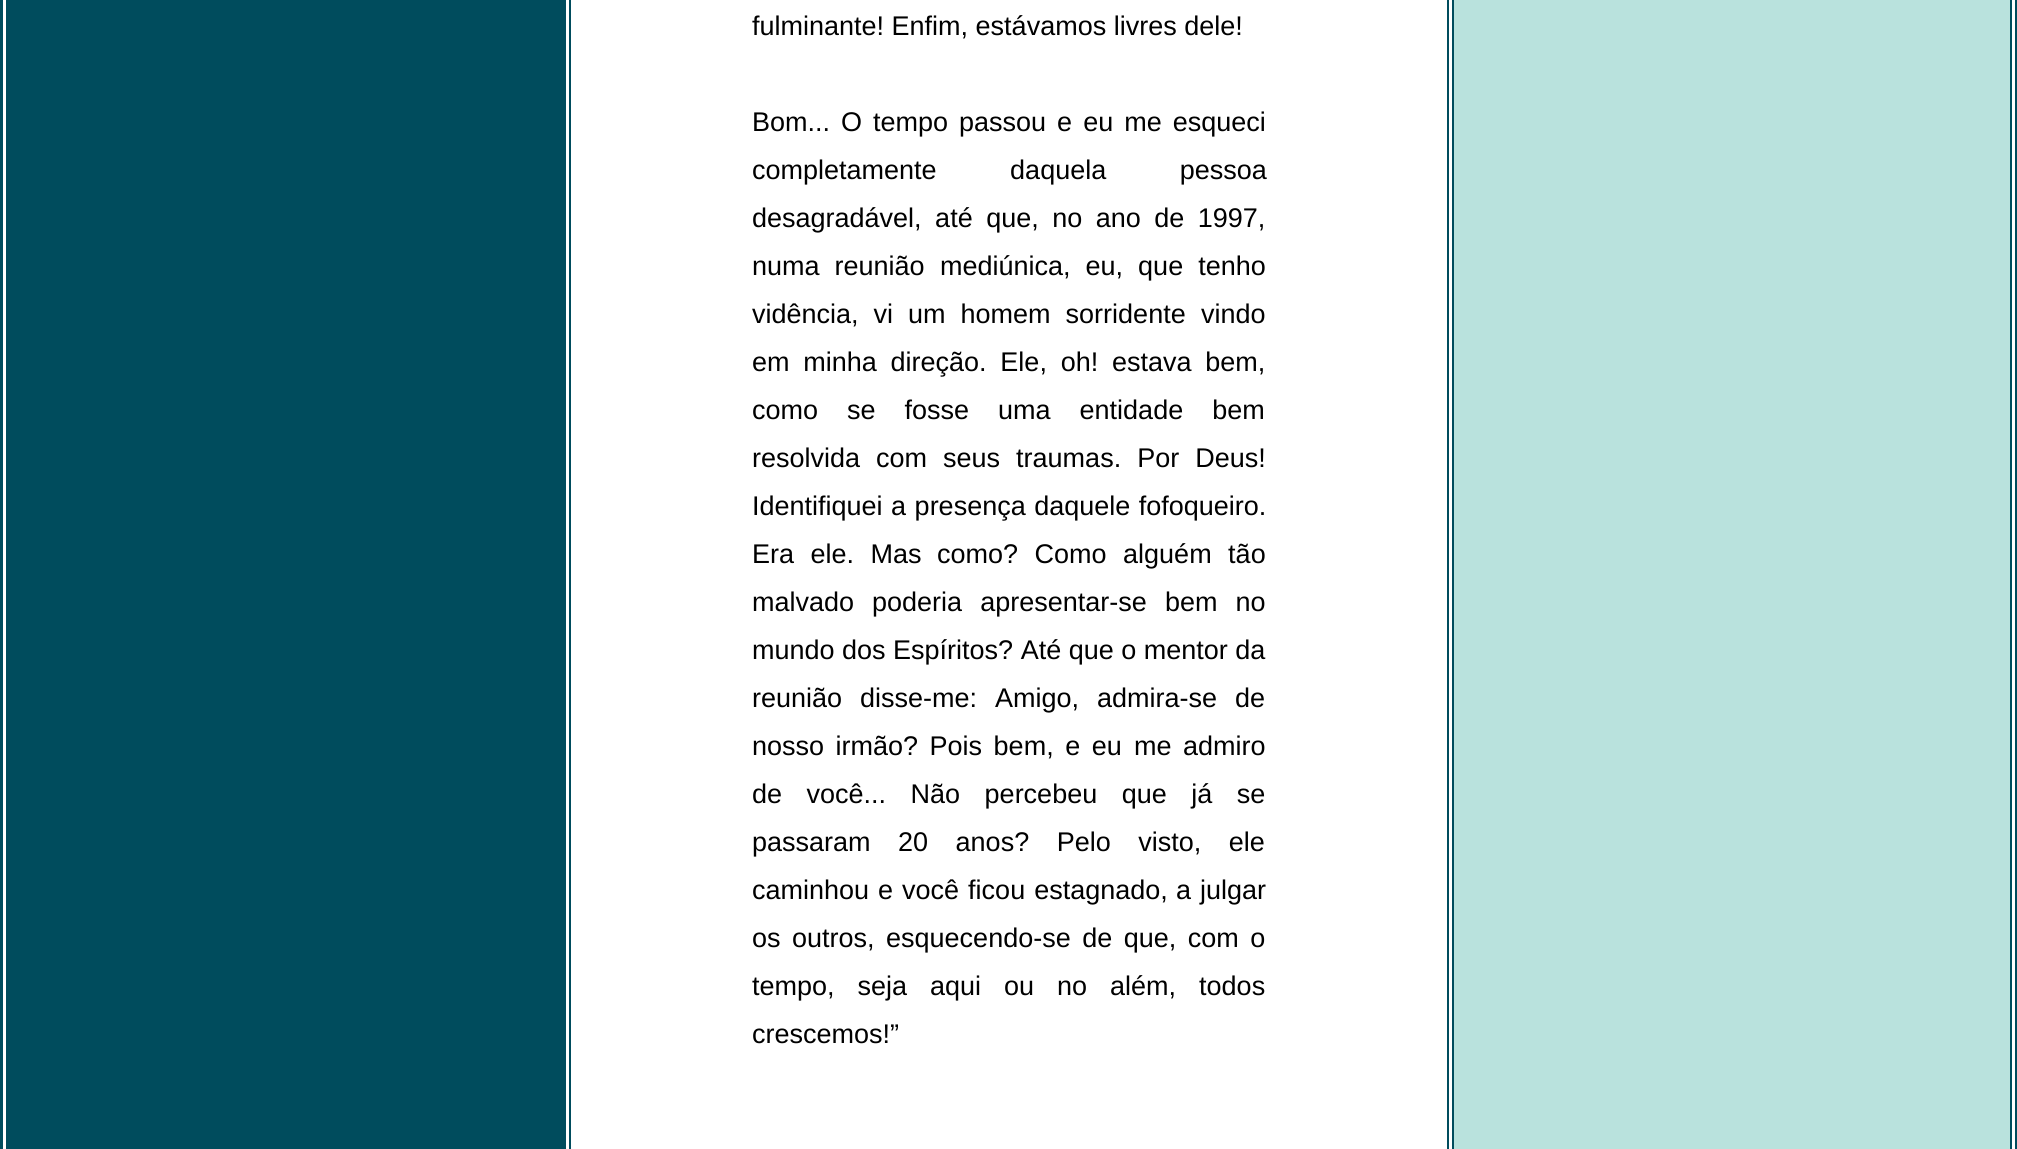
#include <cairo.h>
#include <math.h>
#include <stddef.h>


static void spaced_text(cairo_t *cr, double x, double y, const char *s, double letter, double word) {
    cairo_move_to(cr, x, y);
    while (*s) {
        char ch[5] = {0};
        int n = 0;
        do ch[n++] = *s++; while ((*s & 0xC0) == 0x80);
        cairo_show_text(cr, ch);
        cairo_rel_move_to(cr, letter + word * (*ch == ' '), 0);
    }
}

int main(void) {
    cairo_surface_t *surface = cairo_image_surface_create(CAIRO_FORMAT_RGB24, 2017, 1149);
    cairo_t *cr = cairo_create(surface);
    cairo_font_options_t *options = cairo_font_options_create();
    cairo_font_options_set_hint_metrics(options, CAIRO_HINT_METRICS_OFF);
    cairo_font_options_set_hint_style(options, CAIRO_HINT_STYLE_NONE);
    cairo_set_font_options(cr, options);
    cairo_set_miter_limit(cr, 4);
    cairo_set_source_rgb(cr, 1, 1, 1);
    cairo_paint(cr);
    cairo_rectangle(cr, 1.5, -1.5, 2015, 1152);
    cairo_set_source_rgb(cr, 0, 0.298, 0.365);
    cairo_set_line_width(cr, 3);
    cairo_stroke(cr);
    cairo_rectangle(cr, 6, 0, 560, 1149);
    cairo_fill(cr);
    cairo_set_source_rgb(cr, 0.725, 0.886, 0.867);
    cairo_rectangle(cr, 1453, -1, 558, 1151);
    cairo_fill_preserve(cr);
    cairo_set_source_rgb(cr, 0, 0.298, 0.365);
    cairo_set_line_width(cr, 2);
    cairo_stroke(cr);
    cairo_rectangle(cr, 570, -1, 878, 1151);
    cairo_stroke(cr);
    cairo_select_font_face(cr, "Liberation Sans", CAIRO_FONT_SLANT_NORMAL, CAIRO_FONT_WEIGHT_NORMAL);
    cairo_set_font_size(cr, 27);
    cairo_set_source_rgb(cr, 0, 0, 0);
    cairo_move_to(cr, 752, 35);
    cairo_show_text(cr, "fulminante! Enfim, estávamos livres dele!");
    spaced_text(cr, 752, 131, "Bom... O tempo passou e eu me esqueci", 0, 3.5);
    spaced_text(cr, 752, 179, "completamente daquela pessoa", 0, 66);
    spaced_text(cr, 752, 227, "desagradável, até que, no ano de 1997,", 0, 6);
    spaced_text(cr, 752, 275, "numa reunião", 0, 7.5);
    spaced_text(cr, 940, 275, "mediúnica, eu, que tenho", 0, 7.5);
    spaced_text(cr, 752, 323, "vidência, vi um homem sorridente", 0, 7.5);
    cairo_move_to(cr, 1201, 323);
    cairo_show_text(cr, "vindo");
    spaced_text(cr, 752, 371, "em minha direção. Ele, oh! estava bem,", 0, 6.25);
    cairo_move_to(cr, 752, 419);
    cairo_show_text(cr, "como");
    spaced_text(cr, 847, 419, "se fosse uma entidade bem", 0, 21.5);
    spaced_text(cr, 752, 467, "resolvida com seus traumas. Por Deus!", 0, 8.5);
    spaced_text(cr, 752, 515, "Identifiquei a presença daquele fofoqueiro.", 0, 1);
    spaced_text(cr, 752, 563, "Era ele. Mas", 0, 9);
    spaced_text(cr, 937, 563, "como? Como alguém tão", 0, 9);
    spaced_text(cr, 752, 611, "malvado poderia apresentar-se", 0, 10.5);
    spaced_text(cr, 1165, 611, "bem no", 0, 10.5);
    cairo_move_to(cr, 752, 659);
    cairo_show_text(cr, "mundo dos Espíritos? Até que o mentor da");
    cairo_move_to(cr, 752, 707);
    cairo_show_text(cr, "reunião");
    spaced_text(cr, 860, 707, "disse-me: Amigo, admira-se de", 0, 10.5);
    spaced_text(cr, 752, 755, "nosso irmão? Pois bem, e eu", 0, 4);
    spaced_text(cr, 1134, 755, "me admiro", 0, 4);
    spaced_text(cr, 752, 803, "de você... Não percebeu que já se", 0, 17);
    spaced_text(cr, 752, 851, "passaram 20 anos? Pelo visto, ele", 0, 20);
    spaced_text(cr, 752, 899, "caminhou e você ficou estagnado,", 0, 1.5);
    spaced_text(cr, 1176, 899, "a julgar", 0, 1.5);
    spaced_text(cr, 752, 947, "os outros, esquecendo-se de que, com o", 0, 4);
    spaced_text(cr, 752, 995, "tempo, seja aqui", 0, 15.5);
    spaced_text(cr, 1004, 995, "ou no além, todos", 0, 15.5);
    cairo_move_to(cr, 752, 1043);
    cairo_show_text(cr, "crescemos!”");
    cairo_surface_write_to_png(surface, "page.png");
    cairo_font_options_destroy(options);
    cairo_destroy(cr);
    cairo_surface_destroy(surface);
    return 0;
}
